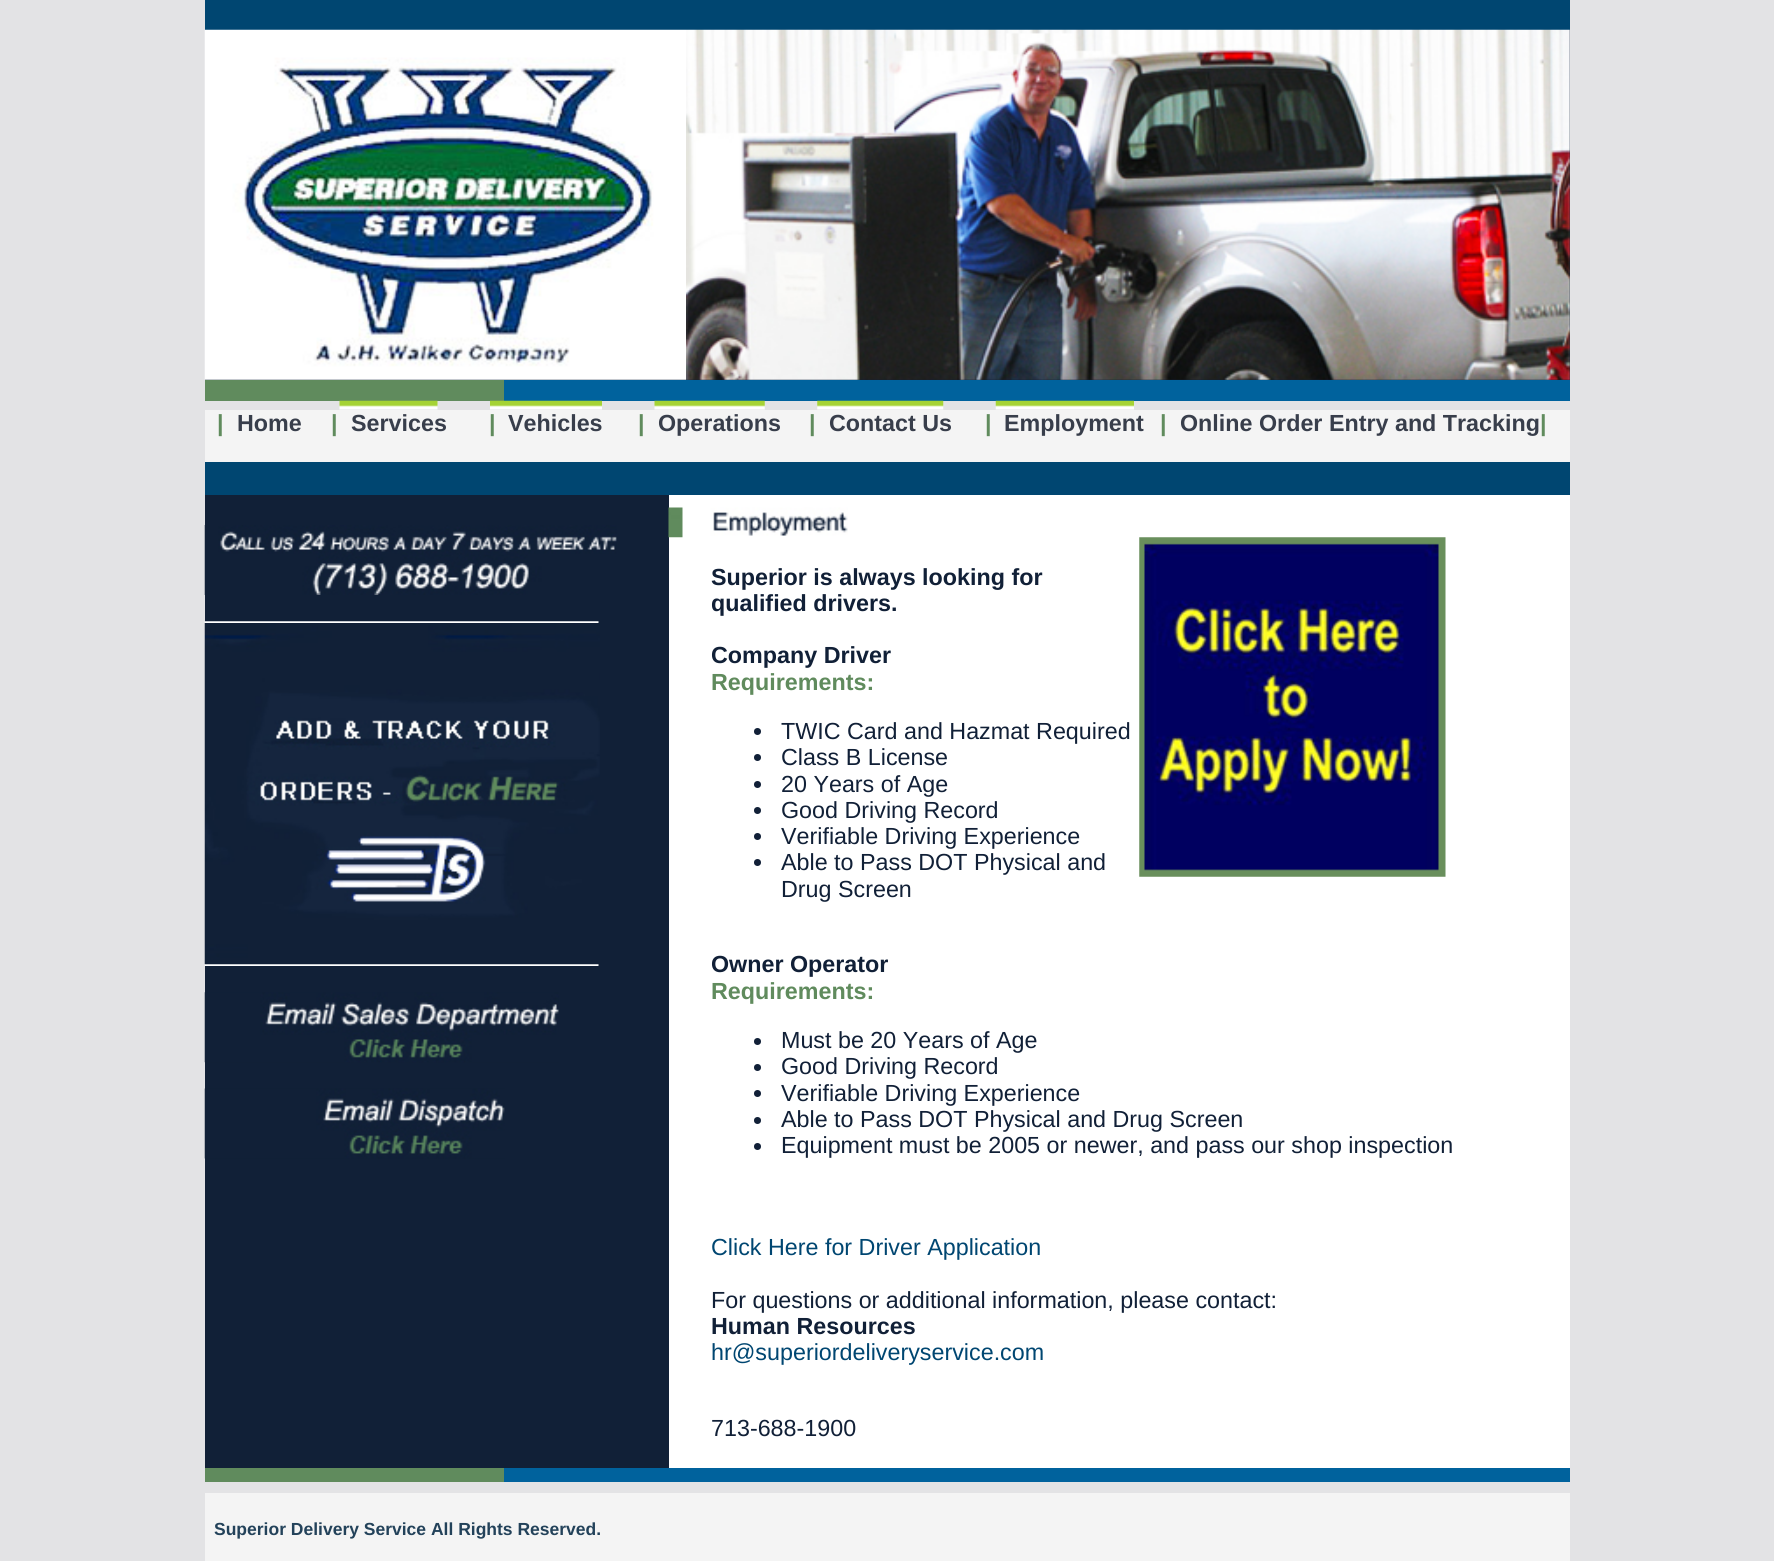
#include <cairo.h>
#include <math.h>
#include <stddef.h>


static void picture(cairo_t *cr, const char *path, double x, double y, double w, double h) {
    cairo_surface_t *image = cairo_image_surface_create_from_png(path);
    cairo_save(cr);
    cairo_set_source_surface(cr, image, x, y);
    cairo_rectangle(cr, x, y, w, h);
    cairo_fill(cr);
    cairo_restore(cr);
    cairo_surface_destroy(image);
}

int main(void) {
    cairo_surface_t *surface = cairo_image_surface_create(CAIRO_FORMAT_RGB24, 1774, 1561);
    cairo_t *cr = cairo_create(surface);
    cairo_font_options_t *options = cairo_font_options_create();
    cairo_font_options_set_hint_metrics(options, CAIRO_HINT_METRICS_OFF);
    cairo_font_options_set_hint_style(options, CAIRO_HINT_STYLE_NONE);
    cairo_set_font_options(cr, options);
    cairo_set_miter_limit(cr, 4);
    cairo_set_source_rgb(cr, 0.89, 0.89, 0.898);
    cairo_paint(cr);
    cairo_set_source_rgb(cr, 0, 0.275, 0.443);
    cairo_rectangle(cr, 205, 0, 1365, 30);
    cairo_fill(cr);
    cairo_set_source_rgb(cr, 0.067, 0.125, 0.216);
    cairo_rectangle(cr, 205, 30, 1365, 350);
    cairo_fill(cr);
    picture(cr, "img1.png", 204, 29, 482, 351);
    picture(cr, "img2.png", 686, 29, 884, 351);
    cairo_set_source_rgb(cr, 0.376, 0.545, 0.365);
    cairo_rectangle(cr, 205, 380, 299, 21);
    cairo_fill(cr);
    cairo_set_source_rgb(cr, 0, 0.384, 0.616);
    cairo_rectangle(cr, 504, 380, 1066, 21);
    cairo_fill(cr);
    picture(cr, "img3.png", 339, 400, 99, 10);
    picture(cr, "img4.png", 490, 400, 112, 10);
    picture(cr, "img5.png", 654, 400, 111, 10);
    picture(cr, "img6.png", 817, 400, 127, 10);
    picture(cr, "img7.png", 995, 400, 139, 10);
    cairo_set_source_rgb(cr, 0.957, 0.957, 0.957);
    cairo_rectangle(cr, 205, 410, 1365, 52);
    cairo_fill(cr);
    cairo_select_font_face(cr, "Liberation Sans", CAIRO_FONT_SLANT_NORMAL, CAIRO_FONT_WEIGHT_BOLD);
    cairo_set_font_size(cr, 23.3);
    cairo_set_source_rgb(cr, 0.376, 0.545, 0.365);
    cairo_move_to(cr, 217, 431);
    cairo_show_text(cr, "|");
    cairo_set_source_rgb(cr, 0.22, 0.243, 0.294);
    cairo_move_to(cr, 237, 431);
    cairo_show_text(cr, "Home");
    cairo_set_source_rgb(cr, 0.376, 0.545, 0.365);
    cairo_move_to(cr, 331, 431);
    cairo_show_text(cr, "|");
    cairo_set_source_rgb(cr, 0.22, 0.243, 0.294);
    cairo_move_to(cr, 351, 431);
    cairo_show_text(cr, "Services");
    cairo_set_source_rgb(cr, 0.376, 0.545, 0.365);
    cairo_move_to(cr, 489, 431);
    cairo_show_text(cr, "|");
    cairo_set_source_rgb(cr, 0.22, 0.243, 0.294);
    cairo_move_to(cr, 508, 431);
    cairo_show_text(cr, "Vehicles");
    cairo_set_source_rgb(cr, 0.376, 0.545, 0.365);
    cairo_move_to(cr, 638, 431);
    cairo_show_text(cr, "|");
    cairo_set_source_rgb(cr, 0.22, 0.243, 0.294);
    cairo_move_to(cr, 658, 431);
    cairo_show_text(cr, "Operations");
    cairo_set_source_rgb(cr, 0.376, 0.545, 0.365);
    cairo_move_to(cr, 809, 431);
    cairo_show_text(cr, "|");
    cairo_set_source_rgb(cr, 0.22, 0.243, 0.294);
    cairo_move_to(cr, 829, 431);
    cairo_show_text(cr, "Contact Us");
    cairo_set_source_rgb(cr, 0.376, 0.545, 0.365);
    cairo_move_to(cr, 985, 431);
    cairo_show_text(cr, "|");
    cairo_set_source_rgb(cr, 0.22, 0.243, 0.294);
    cairo_move_to(cr, 1004, 431);
    cairo_show_text(cr, "Employment");
    cairo_set_source_rgb(cr, 0.376, 0.545, 0.365);
    cairo_move_to(cr, 1160, 431);
    cairo_show_text(cr, "|");
    cairo_set_source_rgb(cr, 0.22, 0.243, 0.294);
    cairo_move_to(cr, 1180, 431);
    cairo_show_text(cr, "Online Order Entry and Tracking");
    cairo_set_source_rgb(cr, 0.376, 0.545, 0.365);
    cairo_move_to(cr, 1540, 431);
    cairo_show_text(cr, "|");
    cairo_set_source_rgb(cr, 0, 0.275, 0.443);
    cairo_rectangle(cr, 205, 462, 1365, 33);
    cairo_fill(cr);
    cairo_set_source_rgb(cr, 0.067, 0.125, 0.216);
    cairo_rectangle(cr, 205, 495, 464, 973);
    cairo_fill(cr);
    picture(cr, "img8.png", 204, 525, 413, 70);
    picture(cr, "img9.png", 204, 621, 395, 2);
    picture(cr, "img10.png", 204, 623, 396, 342);
    picture(cr, "img11.png", 204, 964, 395, 2);
    picture(cr, "img12.png", 204, 992, 355, 71);
    picture(cr, "img13.png", 204, 1088, 301, 71);
    cairo_set_source_rgb(cr, 1, 1, 1);
    cairo_rectangle(cr, 669, 495, 901, 973);
    cairo_fill(cr);
    picture(cr, "img14.png", 668, 507, 180, 31);
    cairo_set_source_rgb(cr, 0.067, 0.125, 0.216);
    cairo_move_to(cr, 711, 585);
    cairo_show_text(cr, "Superior is always looking for");
    cairo_move_to(cr, 711, 611);
    cairo_show_text(cr, "qualified drivers.");
    cairo_move_to(cr, 711, 663);
    cairo_show_text(cr, "Company Driver");
    cairo_set_source_rgb(cr, 0.376, 0.545, 0.365);
    cairo_move_to(cr, 711, 690);
    cairo_show_text(cr, "Requirements:");
    cairo_set_source_rgb(cr, 0.067, 0.125, 0.216);
    cairo_new_path(cr);
    cairo_arc(cr, 757.5, 731.5, 3.5, 0, 2 * M_PI);
    cairo_fill(cr);
    cairo_select_font_face(cr, "Liberation Sans", CAIRO_FONT_SLANT_NORMAL, CAIRO_FONT_WEIGHT_NORMAL);
    cairo_move_to(cr, 781, 739);
    cairo_show_text(cr, "TWIC Card and Hazmat Required");
    cairo_new_path(cr);
    cairo_arc(cr, 757.5, 757.5, 3.5, 0, 2 * M_PI);
    cairo_fill(cr);
    cairo_move_to(cr, 781, 765);
    cairo_show_text(cr, "Class B License");
    cairo_new_path(cr);
    cairo_arc(cr, 757.5, 784.5, 3.5, 0, 2 * M_PI);
    cairo_fill(cr);
    cairo_move_to(cr, 781, 792);
    cairo_show_text(cr, "20 Years of Age");
    cairo_new_path(cr);
    cairo_arc(cr, 757.5, 810.5, 3.5, 0, 2 * M_PI);
    cairo_fill(cr);
    cairo_move_to(cr, 781, 818);
    cairo_show_text(cr, "Good Driving Record");
    cairo_new_path(cr);
    cairo_arc(cr, 757.5, 836.5, 3.5, 0, 2 * M_PI);
    cairo_fill(cr);
    cairo_move_to(cr, 781, 844);
    cairo_show_text(cr, "Verifiable Driving Experience");
    cairo_new_path(cr);
    cairo_arc(cr, 757.5, 862.5, 3.5, 0, 2 * M_PI);
    cairo_fill(cr);
    cairo_move_to(cr, 781, 870);
    cairo_show_text(cr, "Able to Pass DOT Physical and");
    cairo_move_to(cr, 781, 897);
    cairo_show_text(cr, "Drug Screen");
    picture(cr, "img15.png", 1139, 537, 307, 340);
    cairo_select_font_face(cr, "Liberation Sans", CAIRO_FONT_SLANT_NORMAL, CAIRO_FONT_WEIGHT_BOLD);
    cairo_move_to(cr, 711, 972);
    cairo_show_text(cr, "Owner Operator");
    cairo_set_source_rgb(cr, 0.376, 0.545, 0.365);
    cairo_move_to(cr, 711, 999);
    cairo_show_text(cr, "Requirements:");
    cairo_set_source_rgb(cr, 0.067, 0.125, 0.216);
    cairo_new_path(cr);
    cairo_arc(cr, 757.5, 1041.5, 3.5, 0, 2 * M_PI);
    cairo_fill(cr);
    cairo_select_font_face(cr, "Liberation Sans", CAIRO_FONT_SLANT_NORMAL, CAIRO_FONT_WEIGHT_NORMAL);
    cairo_move_to(cr, 781, 1048);
    cairo_show_text(cr, "Must be 20 Years of Age");
    cairo_new_path(cr);
    cairo_arc(cr, 757.5, 1067.5, 3.5, 0, 2 * M_PI);
    cairo_fill(cr);
    cairo_move_to(cr, 781, 1074);
    cairo_show_text(cr, "Good Driving Record");
    cairo_new_path(cr);
    cairo_arc(cr, 757.5, 1093.5, 3.5, 0, 2 * M_PI);
    cairo_fill(cr);
    cairo_move_to(cr, 781, 1101);
    cairo_show_text(cr, "Verifiable Driving Experience");
    cairo_new_path(cr);
    cairo_arc(cr, 757.5, 1120.5, 3.5, 0, 2 * M_PI);
    cairo_fill(cr);
    cairo_move_to(cr, 781, 1127);
    cairo_show_text(cr, "Able to Pass DOT Physical and Drug Screen");
    cairo_new_path(cr);
    cairo_arc(cr, 757.5, 1146.5, 3.5, 0, 2 * M_PI);
    cairo_fill(cr);
    cairo_move_to(cr, 781, 1153);
    cairo_show_text(cr, "Equipment must be 2005 or newer, and pass our shop inspection");
    cairo_set_source_rgb(cr, 0, 0.275, 0.443);
    cairo_move_to(cr, 711, 1255);
    cairo_show_text(cr, "Click Here for Driver Application");
    cairo_set_source_rgb(cr, 0.067, 0.125, 0.216);
    cairo_move_to(cr, 711, 1308);
    cairo_show_text(cr, "For questions or additional information, please contact:");
    cairo_select_font_face(cr, "Liberation Sans", CAIRO_FONT_SLANT_NORMAL, CAIRO_FONT_WEIGHT_BOLD);
    cairo_move_to(cr, 711, 1334);
    cairo_show_text(cr, "Human Resources");
    cairo_select_font_face(cr, "Liberation Sans", CAIRO_FONT_SLANT_NORMAL, CAIRO_FONT_WEIGHT_NORMAL);
    cairo_set_source_rgb(cr, 0, 0.275, 0.443);
    cairo_move_to(cr, 711, 1360);
    cairo_show_text(cr, "hr@superiordeliveryservice.com");
    cairo_set_source_rgb(cr, 0.067, 0.125, 0.216);
    cairo_move_to(cr, 711, 1436);
    cairo_show_text(cr, "713-688-1900");
    cairo_set_source_rgb(cr, 0.376, 0.545, 0.365);
    cairo_rectangle(cr, 205, 1468, 299, 14);
    cairo_fill(cr);
    cairo_set_source_rgb(cr, 0, 0.384, 0.616);
    cairo_rectangle(cr, 504, 1468, 1066, 14);
    cairo_fill(cr);
    cairo_set_source_rgb(cr, 0.957, 0.957, 0.957);
    cairo_rectangle(cr, 205, 1493, 1365, 68);
    cairo_fill(cr);
    cairo_select_font_face(cr, "Liberation Sans", CAIRO_FONT_SLANT_NORMAL, CAIRO_FONT_WEIGHT_BOLD);
    cairo_set_font_size(cr, 17.5);
    cairo_set_source_rgb(cr, 0.137, 0.259, 0.353);
    cairo_move_to(cr, 214, 1535);
    cairo_show_text(cr, "Superior Delivery Service All Rights Reserved.");
    cairo_surface_write_to_png(surface, "page.png");
    cairo_font_options_destroy(options);
    cairo_destroy(cr);
    cairo_surface_destroy(surface);
    return 0;
}
